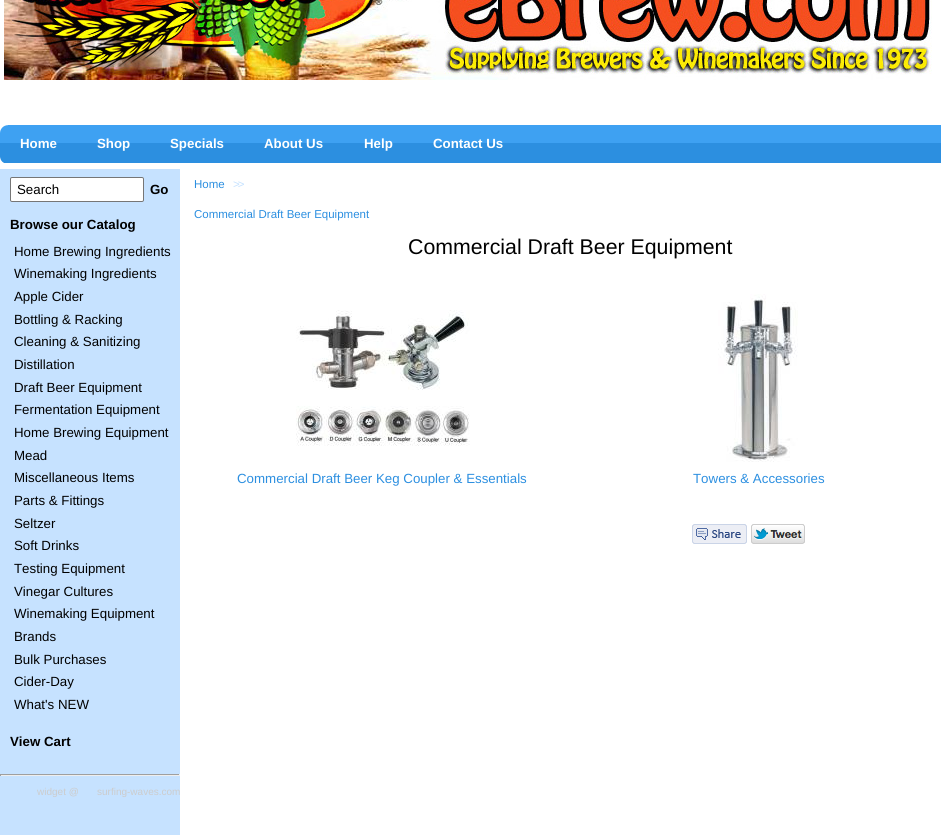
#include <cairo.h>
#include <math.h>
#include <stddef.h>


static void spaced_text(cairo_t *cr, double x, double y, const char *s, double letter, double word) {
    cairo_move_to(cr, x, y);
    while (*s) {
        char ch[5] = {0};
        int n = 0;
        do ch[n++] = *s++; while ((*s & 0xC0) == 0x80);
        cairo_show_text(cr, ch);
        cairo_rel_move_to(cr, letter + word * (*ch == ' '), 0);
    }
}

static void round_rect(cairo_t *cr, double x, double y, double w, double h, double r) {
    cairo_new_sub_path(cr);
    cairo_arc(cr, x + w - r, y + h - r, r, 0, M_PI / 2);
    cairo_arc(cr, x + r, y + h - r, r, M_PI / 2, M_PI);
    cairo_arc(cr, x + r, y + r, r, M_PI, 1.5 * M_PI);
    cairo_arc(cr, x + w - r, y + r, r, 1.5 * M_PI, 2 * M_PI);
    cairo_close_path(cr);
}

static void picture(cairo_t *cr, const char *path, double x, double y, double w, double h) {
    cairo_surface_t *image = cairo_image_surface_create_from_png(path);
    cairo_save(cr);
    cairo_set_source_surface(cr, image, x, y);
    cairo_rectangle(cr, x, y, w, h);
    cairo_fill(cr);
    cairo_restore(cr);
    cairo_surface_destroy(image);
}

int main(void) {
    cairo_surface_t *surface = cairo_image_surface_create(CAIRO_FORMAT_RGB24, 941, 835);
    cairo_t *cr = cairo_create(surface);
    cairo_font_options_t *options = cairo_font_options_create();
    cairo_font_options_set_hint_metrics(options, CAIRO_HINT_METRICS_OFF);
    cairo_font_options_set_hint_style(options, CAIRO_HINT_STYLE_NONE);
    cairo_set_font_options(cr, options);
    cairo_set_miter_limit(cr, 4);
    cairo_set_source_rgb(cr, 1, 1, 1);
    cairo_paint(cr);
    picture(cr, "img1.png", 4, 0, 928, 80);
    cairo_set_source_rgb(cr, 0.243, 0.631, 0.949);
    cairo_rectangle(cr, 0, 125, 941, 18);
    cairo_fill(cr);
    cairo_set_source_rgb(cr, 0.173, 0.561, 0.878);
    cairo_rectangle(cr, 0, 143, 941, 20);
    cairo_fill(cr);
    picture(cr, "img2.png", 0, 125, 8, 38);
    cairo_select_font_face(cr, "Liberation Sans", CAIRO_FONT_SLANT_NORMAL, CAIRO_FONT_WEIGHT_BOLD);
    cairo_set_font_size(cr, 13.3);
    cairo_set_source_rgb(cr, 1, 1, 1);
    cairo_move_to(cr, 20, 148);
    cairo_show_text(cr, "Home");
    cairo_move_to(cr, 97, 148);
    cairo_show_text(cr, "Shop");
    cairo_move_to(cr, 170, 148);
    cairo_show_text(cr, "Specials");
    cairo_move_to(cr, 264, 148);
    cairo_show_text(cr, "About Us");
    cairo_move_to(cr, 364, 148);
    cairo_show_text(cr, "Help");
    cairo_move_to(cr, 433, 148);
    cairo_show_text(cr, "Contact Us");
    cairo_set_source_rgb(cr, 0.776, 0.886, 1);
    cairo_rectangle(cr, 0, 169, 180, 666);
    cairo_fill(cr);
    cairo_set_source_rgb(cr, 1, 1, 1);
    round_rect(cr, 10.5, 177.5, 133, 24, 1.5);
    cairo_fill_preserve(cr);
    cairo_set_source_rgb(cr, 0.463, 0.463, 0.463);
    cairo_set_line_width(cr, 1);
    cairo_stroke(cr);
    cairo_select_font_face(cr, "Liberation Sans", CAIRO_FONT_SLANT_NORMAL, CAIRO_FONT_WEIGHT_NORMAL);
    cairo_set_source_rgb(cr, 0, 0, 0);
    cairo_move_to(cr, 17, 194);
    cairo_show_text(cr, "Search");
    cairo_select_font_face(cr, "Liberation Sans", CAIRO_FONT_SLANT_NORMAL, CAIRO_FONT_WEIGHT_BOLD);
    cairo_move_to(cr, 150, 194);
    cairo_show_text(cr, "Go");
    cairo_move_to(cr, 10, 229);
    cairo_show_text(cr, "Browse our Catalog");
    cairo_select_font_face(cr, "Liberation Sans", CAIRO_FONT_SLANT_NORMAL, CAIRO_FONT_WEIGHT_NORMAL);
    cairo_move_to(cr, 14, 256);
    cairo_show_text(cr, "Home Brewing Ingredients");
    cairo_move_to(cr, 14, 278);
    cairo_show_text(cr, "Winemaking Ingredients");
    cairo_move_to(cr, 14, 301);
    cairo_show_text(cr, "Apple Cider");
    cairo_move_to(cr, 14, 324);
    cairo_show_text(cr, "Bottling & Racking");
    cairo_move_to(cr, 14, 346);
    cairo_show_text(cr, "Cleaning & Sanitizing");
    cairo_move_to(cr, 14, 369);
    cairo_show_text(cr, "Distillation");
    cairo_move_to(cr, 14, 392);
    cairo_show_text(cr, "Draft Beer Equipment");
    cairo_move_to(cr, 14, 414);
    cairo_show_text(cr, "Fermentation Equipment");
    cairo_move_to(cr, 14, 437);
    cairo_show_text(cr, "Home Brewing Equipment");
    cairo_move_to(cr, 14, 460);
    cairo_show_text(cr, "Mead");
    cairo_move_to(cr, 14, 482);
    cairo_show_text(cr, "Miscellaneous Items");
    cairo_move_to(cr, 14, 505);
    cairo_show_text(cr, "Parts & Fittings");
    cairo_move_to(cr, 14, 528);
    cairo_show_text(cr, "Seltzer");
    cairo_move_to(cr, 14, 550);
    cairo_show_text(cr, "Soft Drinks");
    cairo_move_to(cr, 14, 573);
    cairo_show_text(cr, "Testing Equipment");
    cairo_move_to(cr, 14, 596);
    cairo_show_text(cr, "Vinegar Cultures");
    cairo_move_to(cr, 14, 618);
    cairo_show_text(cr, "Winemaking Equipment");
    cairo_move_to(cr, 14, 641);
    cairo_show_text(cr, "Brands");
    cairo_move_to(cr, 14, 664);
    cairo_show_text(cr, "Bulk Purchases");
    cairo_move_to(cr, 14, 686);
    cairo_show_text(cr, "Cider-Day");
    cairo_move_to(cr, 14, 709);
    cairo_show_text(cr, "What's NEW");
    cairo_select_font_face(cr, "Liberation Sans", CAIRO_FONT_SLANT_NORMAL, CAIRO_FONT_WEIGHT_BOLD);
    cairo_move_to(cr, 10, 746);
    cairo_show_text(cr, "View Cart");
    cairo_set_source_rgb(cr, 0.624, 0.624, 0.624);
    cairo_rectangle(cr, 0, 774, 180, 1);
    cairo_fill(cr);
    cairo_set_source_rgb(cr, 0.933, 0.933, 0.933);
    cairo_rectangle(cr, 179, 774, 1, 2);
    cairo_fill(cr);
    cairo_rectangle(cr, 0, 775, 180, 1);
    cairo_fill(cr);
    cairo_set_source_rgb(cr, 0.624, 0.624, 0.624);
    cairo_rectangle(cr, 0, 774, 1, 2);
    cairo_fill(cr);
    cairo_select_font_face(cr, "Liberation Sans", CAIRO_FONT_SLANT_NORMAL, CAIRO_FONT_WEIGHT_NORMAL);
    cairo_set_font_size(cr, 10);
    cairo_set_source_rgb(cr, 0.8, 0.8, 0.8);
    cairo_move_to(cr, 37, 795);
    cairo_show_text(cr, "widget @");
    cairo_move_to(cr, 97, 795);
    cairo_show_text(cr, "surfing-waves.com");
    cairo_set_font_size(cr, 11.5);
    cairo_set_source_rgb(cr, 0.173, 0.561, 0.878);
    cairo_move_to(cr, 194, 188);
    cairo_show_text(cr, "Home");
    cairo_set_source_rgb(cr, 0.776, 0.886, 1);
    spaced_text(cr, 233, 188, ">>", -2, 0);
    cairo_set_source_rgb(cr, 0.173, 0.561, 0.878);
    cairo_move_to(cr, 194, 218);
    cairo_show_text(cr, "Commercial Draft Beer Equipment");
    cairo_set_font_size(cr, 21.3);
    cairo_set_source_rgb(cr, 0, 0, 0);
    cairo_move_to(cr, 408, 254);
    cairo_show_text(cr, "Commercial Draft Beer Equipment");
    picture(cr, "img3.png", 296, 310, 174, 136);
    cairo_set_font_size(cr, 13.3);
    cairo_set_source_rgb(cr, 0.173, 0.561, 0.878);
    cairo_move_to(cr, 237, 483);
    cairo_show_text(cr, "Commercial Draft Beer Keg Coupler & Essentials");
    picture(cr, "img4.png", 718, 294, 80, 168);
    cairo_move_to(cr, 693, 483);
    cairo_show_text(cr, "Towers & Accessories");
    picture(cr, "img5.png", 692, 524, 55, 20);
    picture(cr, "img6.png", 751, 524, 54, 20);
    cairo_surface_write_to_png(surface, "page.png");
    cairo_font_options_destroy(options);
    cairo_destroy(cr);
    cairo_surface_destroy(surface);
    return 0;
}
